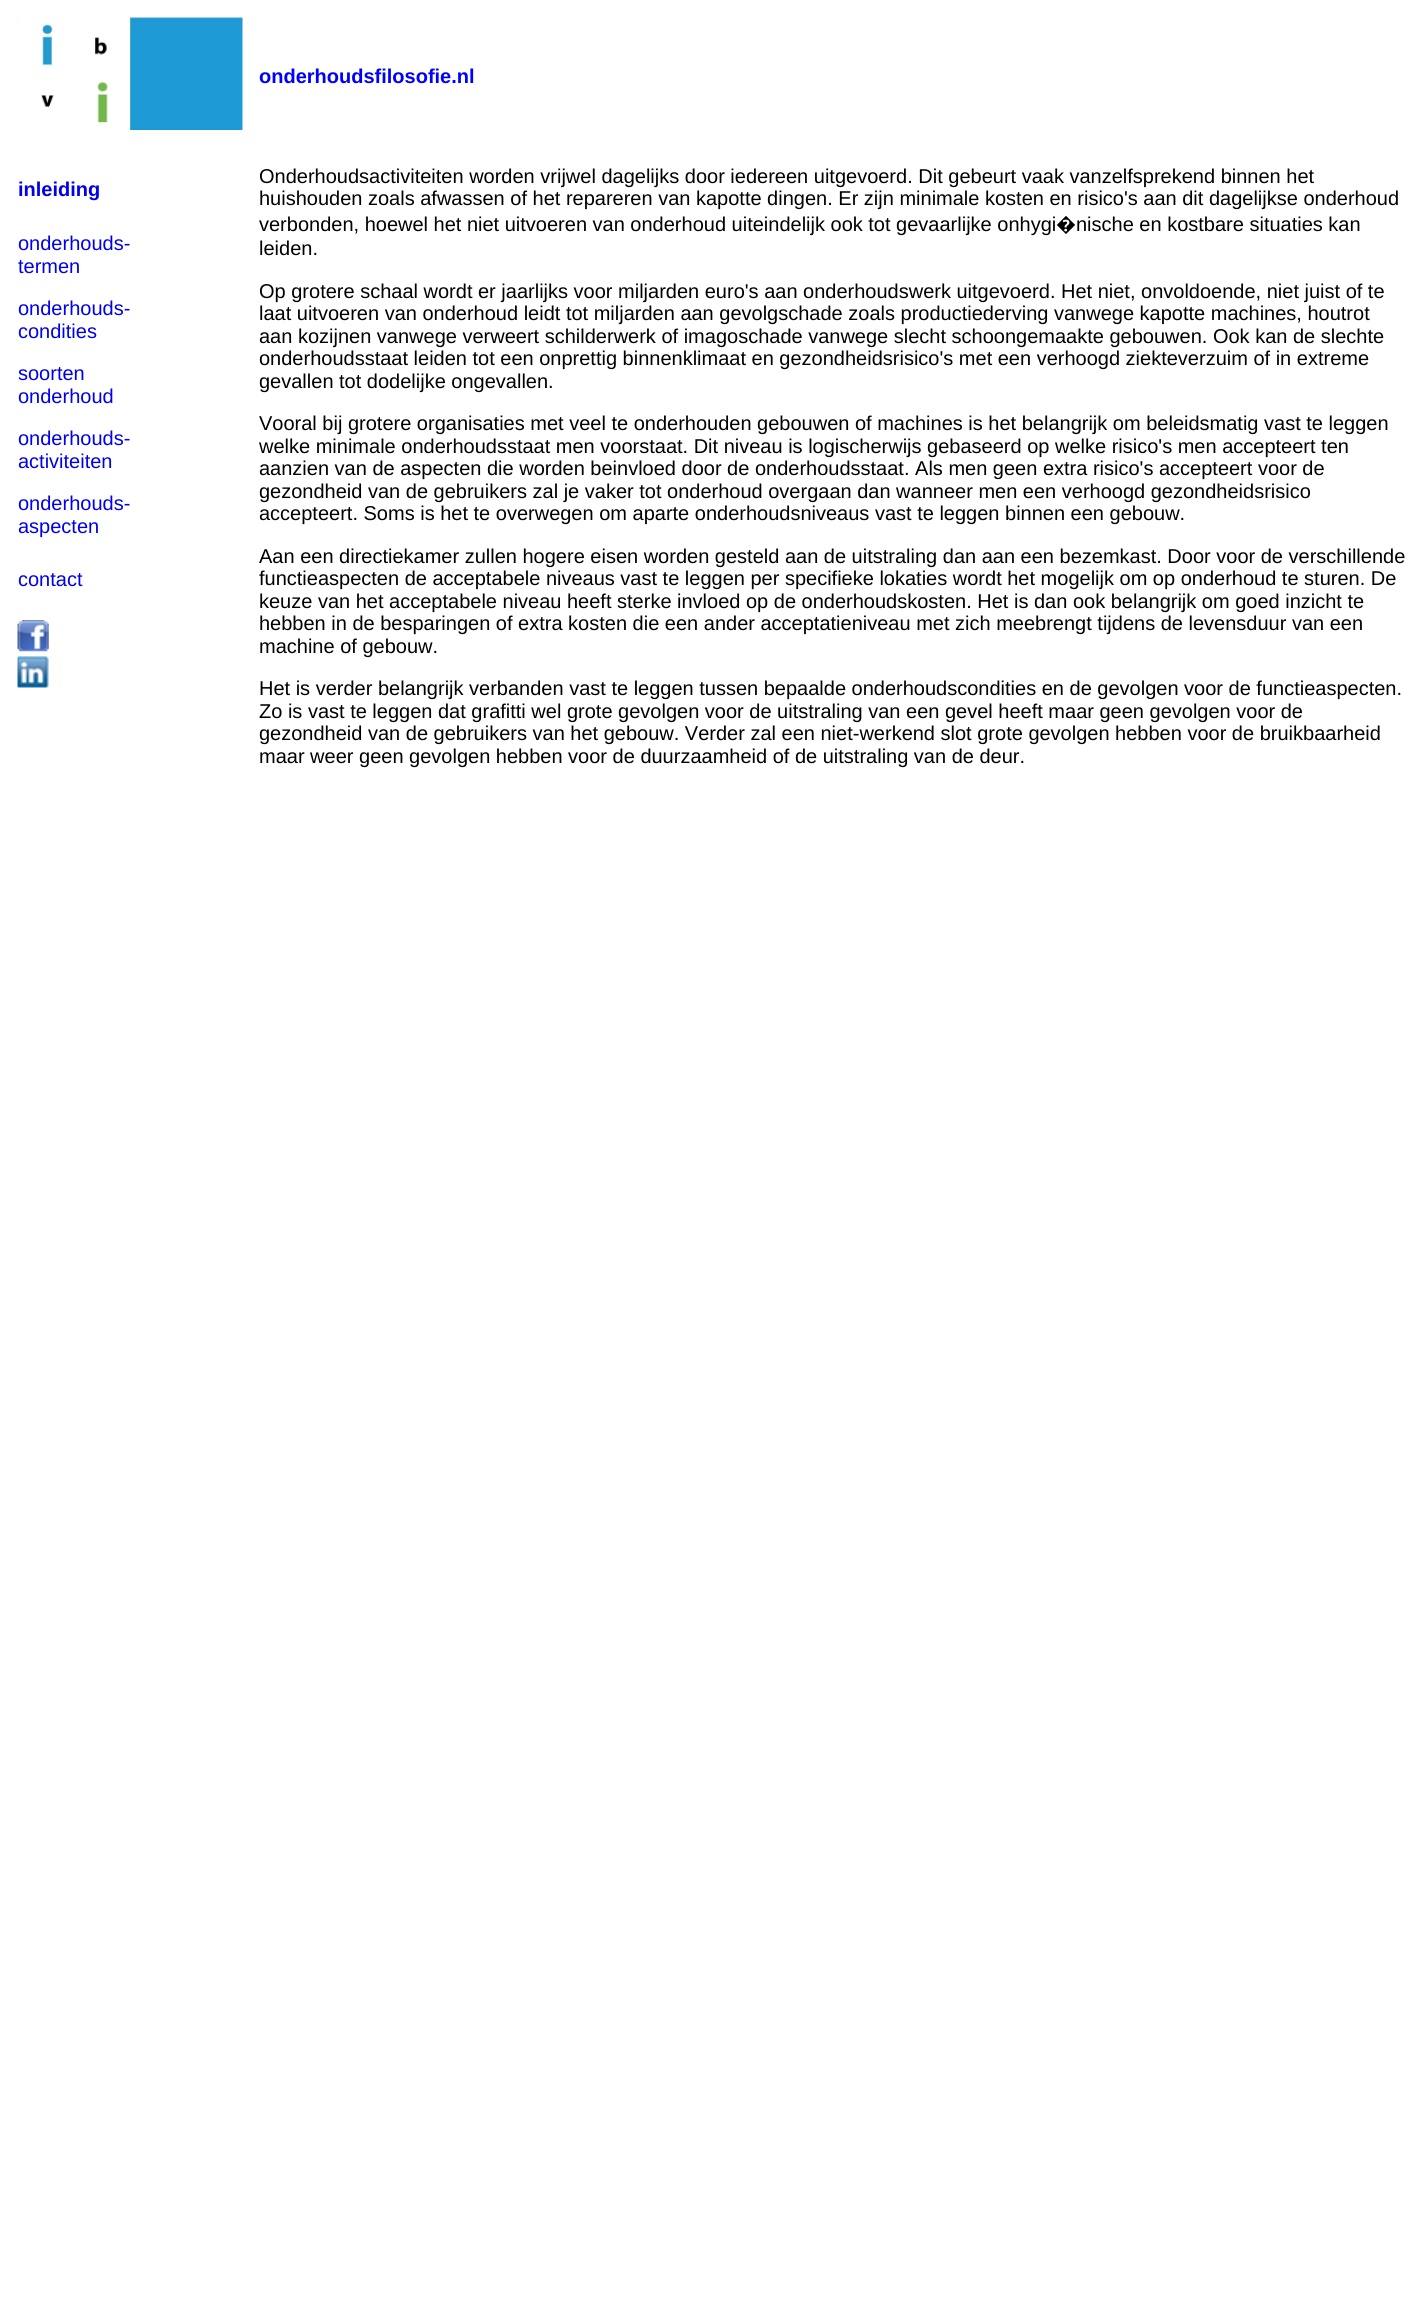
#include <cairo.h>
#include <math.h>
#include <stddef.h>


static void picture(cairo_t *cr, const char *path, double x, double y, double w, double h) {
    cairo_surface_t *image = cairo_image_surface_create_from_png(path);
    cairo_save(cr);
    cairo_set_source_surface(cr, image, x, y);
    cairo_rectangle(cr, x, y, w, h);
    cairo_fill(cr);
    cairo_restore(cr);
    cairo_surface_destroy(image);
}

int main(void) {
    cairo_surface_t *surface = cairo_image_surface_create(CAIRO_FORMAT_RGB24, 1423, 2315);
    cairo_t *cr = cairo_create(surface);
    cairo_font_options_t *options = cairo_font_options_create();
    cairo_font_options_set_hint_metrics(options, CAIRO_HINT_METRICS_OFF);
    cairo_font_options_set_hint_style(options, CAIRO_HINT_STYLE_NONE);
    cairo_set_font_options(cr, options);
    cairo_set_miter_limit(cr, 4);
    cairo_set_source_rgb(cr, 1, 1, 1);
    cairo_paint(cr);
    picture(cr, "img1.png", 17, 17, 226, 113);
    cairo_select_font_face(cr, "Liberation Sans", CAIRO_FONT_SLANT_NORMAL, CAIRO_FONT_WEIGHT_BOLD);
    cairo_set_font_size(cr, 20);
    cairo_set_source_rgb(cr, 0, 0, 0.933);
    cairo_move_to(cr, 18, 196);
    cairo_show_text(cr, "inleiding");
    cairo_select_font_face(cr, "Liberation Sans", CAIRO_FONT_SLANT_NORMAL, CAIRO_FONT_WEIGHT_NORMAL);
    cairo_move_to(cr, 18, 250);
    cairo_show_text(cr, "onderhouds-");
    cairo_move_to(cr, 18, 273);
    cairo_show_text(cr, "termen");
    cairo_move_to(cr, 18, 315);
    cairo_show_text(cr, "onderhouds-");
    cairo_move_to(cr, 18, 338);
    cairo_show_text(cr, "condities");
    cairo_move_to(cr, 18, 380);
    cairo_show_text(cr, "soorten");
    cairo_move_to(cr, 18, 403);
    cairo_show_text(cr, "onderhoud");
    cairo_move_to(cr, 18, 445);
    cairo_show_text(cr, "onderhouds-");
    cairo_move_to(cr, 18, 468);
    cairo_show_text(cr, "activiteiten");
    cairo_move_to(cr, 18, 510);
    cairo_show_text(cr, "onderhouds-");
    cairo_move_to(cr, 18, 533);
    cairo_show_text(cr, "aspecten");
    cairo_move_to(cr, 18, 586);
    cairo_show_text(cr, "contact");
    picture(cr, "img2.png", 17, 620, 32, 32);
    picture(cr, "img3.png", 17, 656, 32, 32);
    cairo_select_font_face(cr, "Liberation Sans", CAIRO_FONT_SLANT_NORMAL, CAIRO_FONT_WEIGHT_BOLD);
    cairo_set_source_rgb(cr, 0, 0, 1);
    cairo_move_to(cr, 259, 83);
    cairo_show_text(cr, "onderhoudsfilosofie.nl");
    cairo_select_font_face(cr, "Liberation Sans", CAIRO_FONT_SLANT_NORMAL, CAIRO_FONT_WEIGHT_NORMAL);
    cairo_set_source_rgb(cr, 0, 0, 0);
    cairo_move_to(cr, 259, 183);
    cairo_show_text(cr, "Onderhoudsactiviteiten worden vrijwel dagelijks door iedereen uitgevoerd. Dit gebeurt vaak vanzelfsprekend binnen het");
    cairo_move_to(cr, 259, 205);
    cairo_show_text(cr, "huishouden zoals afwassen of het repareren van kapotte dingen. Er zijn minimale kosten en risico's aan dit dagelijkse onderhoud");
    cairo_move_to(cr, 259, 231);
    cairo_show_text(cr, "verbonden, hoewel het niet uitvoeren van onderhoud uiteindelijk ook tot gevaarlijke onhygi");
    cairo_select_font_face(cr, "Noto Sans", CAIRO_FONT_SLANT_NORMAL, CAIRO_FONT_WEIGHT_NORMAL);
    cairo_move_to(cr, 1056, 231);
    cairo_show_text(cr, "�");
    cairo_select_font_face(cr, "Liberation Sans", CAIRO_FONT_SLANT_NORMAL, CAIRO_FONT_WEIGHT_NORMAL);
    cairo_move_to(cr, 1076, 231);
    cairo_show_text(cr, "nische en kostbare situaties kan");
    cairo_move_to(cr, 259, 255);
    cairo_show_text(cr, "leiden.");
    cairo_move_to(cr, 259, 298);
    cairo_show_text(cr, "Op grotere schaal wordt er jaarlijks voor miljarden euro's aan onderhoudswerk uitgevoerd. Het niet, onvoldoende, niet juist of te");
    cairo_move_to(cr, 259, 320);
    cairo_show_text(cr, "laat uitvoeren van onderhoud leidt tot miljarden aan gevolgschade zoals productiederving vanwege kapotte machines, houtrot");
    cairo_move_to(cr, 259, 343);
    cairo_show_text(cr, "aan kozijnen vanwege verweert schilderwerk of imagoschade vanwege slecht schoongemaakte gebouwen. Ook kan de slechte");
    cairo_move_to(cr, 259, 365);
    cairo_show_text(cr, "onderhoudsstaat leiden tot een onprettig binnenklimaat en gezondheidsrisico's met een verhoogd ziekteverzuim of in extreme");
    cairo_move_to(cr, 259, 388);
    cairo_show_text(cr, "gevallen tot dodelijke ongevallen.");
    cairo_move_to(cr, 259, 430);
    cairo_show_text(cr, "Vooral bij grotere organisaties met veel te onderhouden gebouwen of machines is het belangrijk om beleidsmatig vast te leggen");
    cairo_move_to(cr, 259, 453);
    cairo_show_text(cr, "welke minimale onderhoudsstaat men voorstaat. Dit niveau is logischerwijs gebaseerd op welke risico's men accepteert ten");
    cairo_move_to(cr, 259, 475);
    cairo_show_text(cr, "aanzien van de aspecten die worden beinvloed door de onderhoudsstaat. Als men geen extra risico's accepteert voor de");
    cairo_move_to(cr, 259, 498);
    cairo_show_text(cr, "gezondheid van de gebruikers zal je vaker tot onderhoud overgaan dan wanneer men een verhoogd gezondheidsrisico");
    cairo_move_to(cr, 259, 520);
    cairo_show_text(cr, "accepteert. Soms is het te overwegen om aparte onderhoudsniveaus vast te leggen binnen een gebouw.");
    cairo_move_to(cr, 259, 563);
    cairo_show_text(cr, "Aan een directiekamer zullen hogere eisen worden gesteld aan de uitstraling dan aan een bezemkast. Door voor de verschillende");
    cairo_move_to(cr, 259, 585);
    cairo_show_text(cr, "functieaspecten de acceptabele niveaus vast te leggen per specifieke lokaties wordt het mogelijk om op onderhoud te sturen. De");
    cairo_move_to(cr, 259, 608);
    cairo_show_text(cr, "keuze van het acceptabele niveau heeft sterke invloed op de onderhoudskosten. Het is dan ook belangrijk om goed inzicht te");
    cairo_move_to(cr, 259, 630);
    cairo_show_text(cr, "hebben in de besparingen of extra kosten die een ander acceptatieniveau met zich meebrengt tijdens de levensduur van een");
    cairo_move_to(cr, 259, 653);
    cairo_show_text(cr, "machine of gebouw.");
    cairo_move_to(cr, 259, 695);
    cairo_show_text(cr, "Het is verder belangrijk verbanden vast te leggen tussen bepaalde onderhoudscondities en de gevolgen voor de functieaspecten.");
    cairo_move_to(cr, 259, 718);
    cairo_show_text(cr, "Zo is vast te leggen dat grafitti wel grote gevolgen voor de uitstraling van een gevel heeft maar geen gevolgen voor de");
    cairo_move_to(cr, 259, 740);
    cairo_show_text(cr, "gezondheid van de gebruikers van het gebouw. Verder zal een niet-werkend slot grote gevolgen hebben voor de bruikbaarheid");
    cairo_move_to(cr, 259, 763);
    cairo_show_text(cr, "maar weer geen gevolgen hebben voor de duurzaamheid of de uitstraling van de deur.");
    cairo_surface_write_to_png(surface, "page.png");
    cairo_font_options_destroy(options);
    cairo_destroy(cr);
    cairo_surface_destroy(surface);
    return 0;
}
